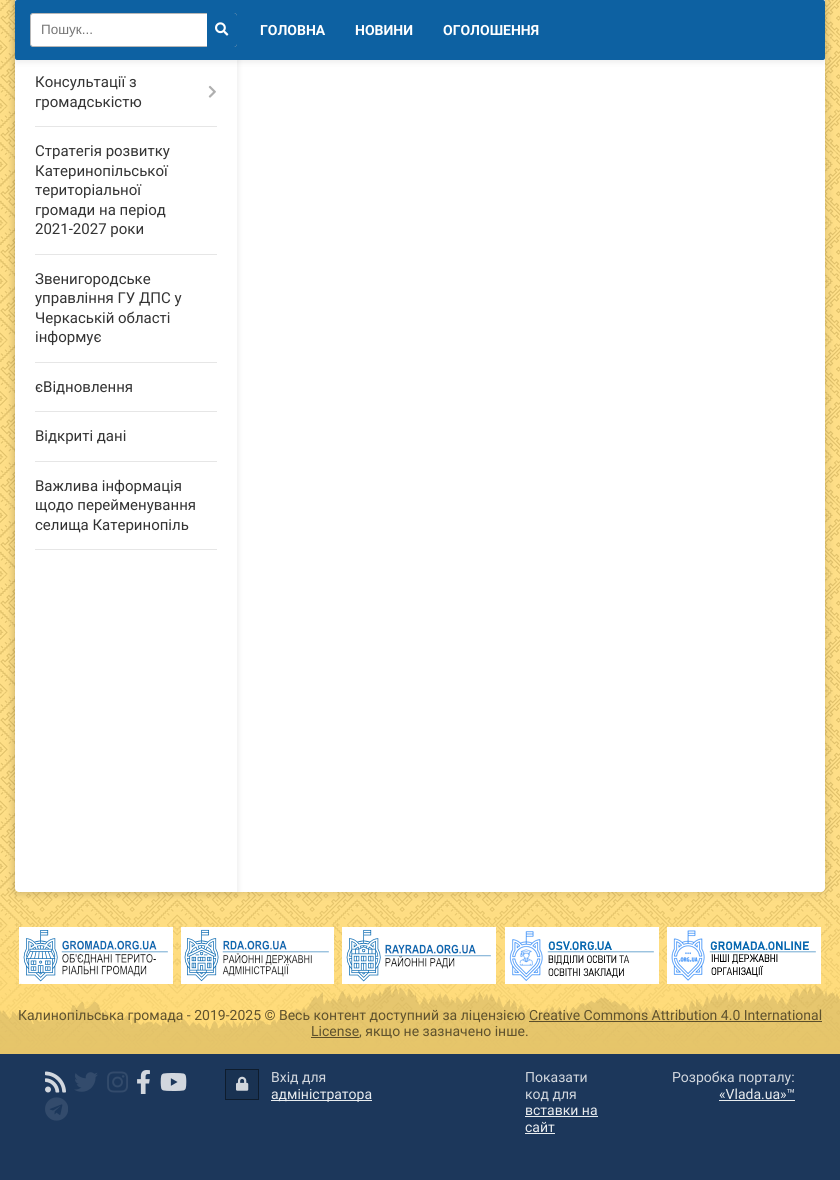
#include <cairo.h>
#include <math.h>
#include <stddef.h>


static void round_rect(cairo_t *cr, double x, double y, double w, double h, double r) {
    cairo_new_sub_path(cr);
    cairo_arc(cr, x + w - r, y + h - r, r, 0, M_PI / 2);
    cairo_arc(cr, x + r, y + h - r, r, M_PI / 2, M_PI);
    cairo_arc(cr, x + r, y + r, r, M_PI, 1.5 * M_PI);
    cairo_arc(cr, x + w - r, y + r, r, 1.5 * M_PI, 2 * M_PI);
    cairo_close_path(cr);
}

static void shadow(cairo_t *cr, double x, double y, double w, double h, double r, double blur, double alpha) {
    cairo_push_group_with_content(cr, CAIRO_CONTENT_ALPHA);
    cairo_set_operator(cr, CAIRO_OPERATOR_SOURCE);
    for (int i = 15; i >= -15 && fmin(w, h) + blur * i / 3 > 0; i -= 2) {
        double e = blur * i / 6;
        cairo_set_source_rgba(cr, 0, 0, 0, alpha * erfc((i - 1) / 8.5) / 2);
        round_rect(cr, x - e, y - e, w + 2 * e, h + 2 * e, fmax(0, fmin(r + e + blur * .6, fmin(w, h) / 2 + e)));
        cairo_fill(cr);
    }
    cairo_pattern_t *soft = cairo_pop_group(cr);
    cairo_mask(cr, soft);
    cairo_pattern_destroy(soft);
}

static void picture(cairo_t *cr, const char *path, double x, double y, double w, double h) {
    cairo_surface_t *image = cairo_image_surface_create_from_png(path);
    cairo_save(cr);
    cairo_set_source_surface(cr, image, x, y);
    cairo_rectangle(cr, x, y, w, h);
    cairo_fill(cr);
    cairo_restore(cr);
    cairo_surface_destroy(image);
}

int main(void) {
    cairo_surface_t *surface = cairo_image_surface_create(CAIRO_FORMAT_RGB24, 840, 1180);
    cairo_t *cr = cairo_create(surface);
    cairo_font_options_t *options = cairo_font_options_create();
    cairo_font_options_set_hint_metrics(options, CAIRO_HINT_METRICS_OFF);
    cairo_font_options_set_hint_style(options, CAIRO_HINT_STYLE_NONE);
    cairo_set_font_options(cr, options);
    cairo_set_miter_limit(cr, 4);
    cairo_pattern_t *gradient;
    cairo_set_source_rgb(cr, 1, 0.855, 0.459);
    cairo_paint(cr);
    picture(cr, "img1.png", 0, 0, 840, 1053);
    gradient = cairo_pattern_create_linear(420, 877, 420, 1054);
    cairo_pattern_add_color_stop_rgba(gradient, 0, 1, 0.855, 0.459, 0);
    cairo_pattern_add_color_stop_rgba(gradient, 1, 1, 0.855, 0.459, 1);
    cairo_set_source(cr, gradient);
    cairo_pattern_destroy(gradient);
    cairo_rectangle(cr, 0, 891, 840, 162);
    cairo_fill(cr);
    cairo_set_source_rgb(cr, 0, 0, 0);
    shadow(cr, 15, -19, 810, 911, 4, 5, 0.15);
    cairo_set_source_rgb(cr, 1, 1, 1);
    round_rect(cr, 15, -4, 810, 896, 4);
    cairo_fill(cr);
    cairo_set_source_rgb(cr, 0, 0, 0);
    shadow(cr, 15, 1, 810, 60, 2, 3.5, 0.1);
    cairo_save(cr);
    cairo_set_fill_rule(cr, CAIRO_FILL_RULE_EVEN_ODD);
    cairo_new_path(cr);
    cairo_move_to(cr, 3, 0);
    cairo_line_to(cr, 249, 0);
    cairo_line_to(cr, 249, 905);
    cairo_line_to(cr, 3, 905);
    cairo_close_path(cr);
    cairo_move_to(cr, 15, -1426);
    cairo_line_to(cr, 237, -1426);
    cairo_line_to(cr, 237, 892);
    cairo_line_to(cr, 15, 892);
    cairo_close_path(cr);
    cairo_clip(cr);
    shadow(cr, 15, -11, 222, 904, 0, 3.5, 0.1);
    cairo_restore(cr);
    cairo_set_source_rgb(cr, 0.051, 0.38, 0.635);
    round_rect(cr, 15, 0, 810, 60, 2);
    cairo_fill(cr);
    cairo_select_font_face(cr, "Roboto", CAIRO_FONT_SLANT_NORMAL, CAIRO_FONT_WEIGHT_BOLD);
    cairo_set_font_size(cr, 14);
    cairo_set_source_rgb(cr, 1, 1, 1);
    cairo_move_to(cr, 260, 35);
    cairo_show_text(cr, "ГОЛОВНА");
    cairo_move_to(cr, 355, 35);
    cairo_show_text(cr, "НОВИНИ");
    cairo_move_to(cr, 443, 35);
    cairo_show_text(cr, "ОГОЛОШЕННЯ");
    cairo_select_font_face(cr, "Roboto", CAIRO_FONT_SLANT_NORMAL, CAIRO_FONT_WEIGHT_NORMAL);
    cairo_set_font_size(cr, 15);
    cairo_set_source_rgb(cr, 0.2, 0.2, 0.2);
    cairo_move_to(cr, 35, 87);
    cairo_show_text(cr, "Консультації з");
    cairo_move_to(cr, 35, 107);
    cairo_show_text(cr, "громадськістю");
    cairo_set_source_rgb(cr, 0.902, 0.902, 0.902);
    cairo_rectangle(cr, 35, 126, 182, 1);
    cairo_fill(cr);
    picture(cr, "img2.png", 208, 85, 8, 13);
    cairo_set_source_rgb(cr, 0.2, 0.2, 0.2);
    cairo_move_to(cr, 35, 156);
    cairo_show_text(cr, "Стратегія розвитку");
    cairo_move_to(cr, 35, 176);
    cairo_show_text(cr, "Катеринопільської");
    cairo_move_to(cr, 35, 195);
    cairo_show_text(cr, "територіальної");
    cairo_move_to(cr, 35, 215);
    cairo_show_text(cr, "громади на період");
    cairo_move_to(cr, 35, 234);
    cairo_show_text(cr, "2021-2027 роки");
    cairo_set_source_rgb(cr, 0.902, 0.902, 0.902);
    cairo_rectangle(cr, 35, 254, 182, 1);
    cairo_fill(cr);
    cairo_set_source_rgb(cr, 0.2, 0.2, 0.2);
    cairo_move_to(cr, 35, 284);
    cairo_show_text(cr, "Звенигородське");
    cairo_move_to(cr, 35, 303);
    cairo_show_text(cr, "управління ГУ ДПС у");
    cairo_move_to(cr, 35, 323);
    cairo_show_text(cr, "Черкаській області");
    cairo_move_to(cr, 35, 342);
    cairo_show_text(cr, "інформує");
    cairo_set_source_rgb(cr, 0.902, 0.902, 0.902);
    cairo_rectangle(cr, 35, 362, 182, 1);
    cairo_fill(cr);
    cairo_set_source_rgb(cr, 0.2, 0.2, 0.2);
    cairo_move_to(cr, 35, 392);
    cairo_show_text(cr, "єВідновлення");
    cairo_set_source_rgb(cr, 0.902, 0.902, 0.902);
    cairo_rectangle(cr, 35, 411, 182, 1);
    cairo_fill(cr);
    cairo_set_source_rgb(cr, 0.2, 0.2, 0.2);
    cairo_move_to(cr, 35, 441);
    cairo_show_text(cr, "Відкриті дані");
    cairo_set_source_rgb(cr, 0.902, 0.902, 0.902);
    cairo_rectangle(cr, 35, 461, 182, 1);
    cairo_fill(cr);
    cairo_set_source_rgb(cr, 0.2, 0.2, 0.2);
    cairo_move_to(cr, 35, 491);
    cairo_show_text(cr, "Важлива інформація");
    cairo_move_to(cr, 35, 510);
    cairo_show_text(cr, "щодо перейменування");
    cairo_move_to(cr, 35, 530);
    cairo_show_text(cr, "селища Катеринопіль");
    cairo_set_source_rgb(cr, 0.902, 0.902, 0.902);
    cairo_rectangle(cr, 35, 549, 182, 1);
    cairo_fill(cr);
    cairo_set_source_rgb(cr, 1, 1, 1);
    round_rect(cr, 30.5, 13.5, 206, 33, 2.5);
    cairo_fill_preserve(cr);
    cairo_set_source_rgb(cr, 0.718, 0.718, 0.718);
    cairo_set_line_width(cr, 1);
    cairo_stroke(cr);
    cairo_select_font_face(cr, "Liberation Sans", CAIRO_FONT_SLANT_NORMAL, CAIRO_FONT_WEIGHT_NORMAL);
    cairo_set_font_size(cr, 13.5);
    cairo_set_source_rgb(cr, 0.459, 0.459, 0.459);
    cairo_move_to(cr, 41, 34);
    cairo_show_text(cr, "Пошук...");
    cairo_set_source_rgb(cr, 0.051, 0.38, 0.635);
    cairo_new_path(cr);
    cairo_move_to(cr, 207, 13);
    cairo_line_to(cr, 234, 13);
    cairo_curve_to(cr, 235.5, 13, 237, 14.5, 237, 16);
    cairo_line_to(cr, 237, 44);
    cairo_curve_to(cr, 237, 45.5, 235.5, 47, 234, 47);
    cairo_line_to(cr, 207, 47);
    cairo_close_path(cr);
    cairo_fill(cr);
    picture(cr, "img3.png", 215, 22, 14, 14);
    picture(cr, "img4.png", 0, 985, 840, 69);
    picture(cr, "img5.png", 19, 927, 154, 57);
    picture(cr, "img6.png", 181, 927, 153, 57);
    picture(cr, "img7.png", 342, 927, 154, 57);
    picture(cr, "img8.png", 505, 927, 154, 57);
    picture(cr, "img9.png", 667, 927, 154, 57);
    cairo_select_font_face(cr, "Roboto", CAIRO_FONT_SLANT_NORMAL, CAIRO_FONT_WEIGHT_NORMAL);
    cairo_set_font_size(cr, 14);
    cairo_set_source_rgb(cr, 0.373, 0.322, 0.176);
    cairo_move_to(cr, 18, 1020);
    cairo_show_text(cr, "Калинопільська громада - 2019-2025 © Весь контент доступний за ліцензією");
    cairo_move_to(cr, 529, 1020);
    cairo_show_text(cr, "Creative Commons Attribution 4.0 International");
    cairo_set_source_rgba(cr, 0, 0, 0, 0.6);
    cairo_rectangle(cr, 529, 1021, 293, 1);
    cairo_fill(cr);
    cairo_rectangle(cr, 311, 1037, 48, 1);
    cairo_fill(cr);
    cairo_set_source_rgb(cr, 0.373, 0.322, 0.176);
    cairo_move_to(cr, 311, 1036);
    cairo_show_text(cr, "License, якщо не зазначено інше.");
    cairo_set_source_rgb(cr, 0.11, 0.216, 0.357);
    cairo_rectangle(cr, 0, 1054, 840, 126);
    cairo_fill(cr);
    picture(cr, "img10.png", 45, 1071, 21, 22);
    picture(cr, "img11.png", 74, 1072, 24, 20);
    picture(cr, "img12.png", 107, 1071, 21, 22);
    picture(cr, "img13.png", 137, 1070, 13, 24);
    picture(cr, "img14.png", 160, 1073, 27, 18);
    picture(cr, "img15.png", 45, 1097, 23, 24);
    cairo_set_source_rgb(cr, 0.098, 0.196, 0.322);
    cairo_rectangle(cr, 225.5, 1069.5, 33, 30);
    cairo_fill_preserve(cr);
    cairo_set_source_rgb(cr, 0.055, 0.11, 0.176);
    cairo_stroke(cr);
    picture(cr, "img16.png", 236, 1076, 13, 15);
    cairo_set_source_rgb(cr, 0.824, 0.843, 0.871);
    cairo_move_to(cr, 271, 1082);
    cairo_show_text(cr, "Вхід для");
    cairo_set_source_rgb(cr, 0.91, 0.922, 0.937);
    cairo_rectangle(cr, 271, 1100, 101, 1);
    cairo_fill(cr);
    cairo_set_source_rgb(cr, 0.914, 0.922, 0.937);
    cairo_move_to(cr, 271, 1099);
    cairo_show_text(cr, "адміністратора");
    cairo_set_source_rgb(cr, 0.824, 0.843, 0.871);
    cairo_move_to(cr, 525, 1082);
    cairo_show_text(cr, "Показати");
    cairo_move_to(cr, 525, 1099);
    cairo_show_text(cr, "код для");
    cairo_set_source_rgb(cr, 0.914, 0.922, 0.937);
    cairo_move_to(cr, 525, 1115);
    cairo_show_text(cr, "вставки на");
    cairo_set_source_rgb(cr, 0.91, 0.922, 0.937);
    cairo_rectangle(cr, 525, 1116, 73, 1);
    cairo_fill(cr);
    cairo_set_source_rgb(cr, 0.914, 0.922, 0.937);
    cairo_move_to(cr, 525, 1132);
    cairo_show_text(cr, "сайт");
    cairo_set_source_rgb(cr, 0.91, 0.922, 0.937);
    cairo_rectangle(cr, 525, 1133, 30, 1);
    cairo_fill(cr);
    cairo_set_source_rgb(cr, 0.824, 0.843, 0.871);
    cairo_move_to(cr, 672, 1082);
    cairo_show_text(cr, "Розробка порталу:");
    cairo_set_source_rgb(cr, 0.914, 0.922, 0.937);
    cairo_move_to(cr, 719, 1099);
    cairo_show_text(cr, "«Vlada.ua»™");
    cairo_set_source_rgb(cr, 0.91, 0.922, 0.937);
    cairo_rectangle(cr, 719, 1100, 76, 1);
    cairo_fill(cr);
    cairo_surface_write_to_png(surface, "page.png");
    cairo_font_options_destroy(options);
    cairo_destroy(cr);
    cairo_surface_destroy(surface);
    return 0;
}
